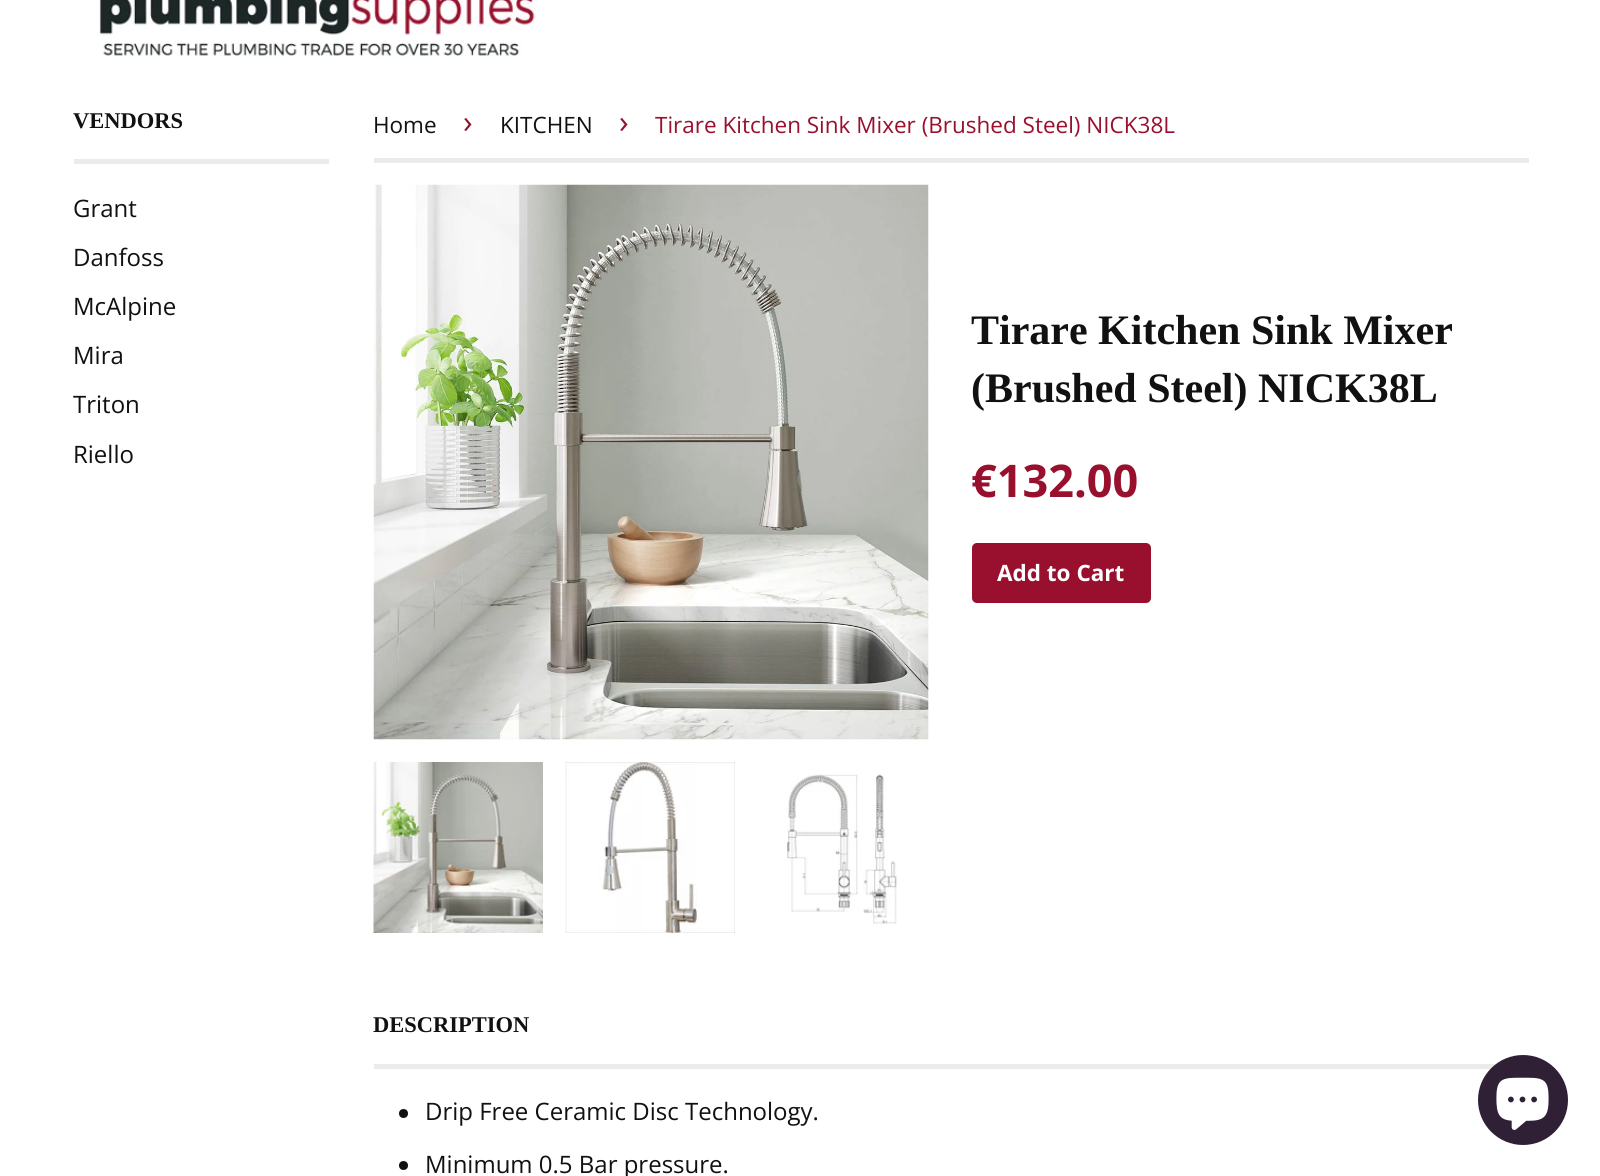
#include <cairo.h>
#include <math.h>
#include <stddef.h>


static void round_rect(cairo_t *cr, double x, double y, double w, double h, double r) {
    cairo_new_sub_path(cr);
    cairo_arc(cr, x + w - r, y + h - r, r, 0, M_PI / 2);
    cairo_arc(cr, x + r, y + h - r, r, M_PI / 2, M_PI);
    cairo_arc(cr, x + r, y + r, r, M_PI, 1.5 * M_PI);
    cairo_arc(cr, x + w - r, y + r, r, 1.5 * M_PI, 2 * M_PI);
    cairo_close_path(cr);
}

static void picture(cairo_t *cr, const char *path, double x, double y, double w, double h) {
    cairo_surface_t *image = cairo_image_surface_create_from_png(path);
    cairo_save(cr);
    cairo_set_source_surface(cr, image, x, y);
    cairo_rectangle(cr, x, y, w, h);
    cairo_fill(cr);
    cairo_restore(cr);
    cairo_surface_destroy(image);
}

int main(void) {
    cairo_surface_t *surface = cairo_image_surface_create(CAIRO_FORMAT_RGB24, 1600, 1176);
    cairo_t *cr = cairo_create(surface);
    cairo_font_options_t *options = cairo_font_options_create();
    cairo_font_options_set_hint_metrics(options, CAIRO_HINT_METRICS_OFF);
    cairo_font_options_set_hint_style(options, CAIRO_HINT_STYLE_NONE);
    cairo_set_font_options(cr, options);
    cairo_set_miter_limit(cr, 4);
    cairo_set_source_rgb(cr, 1, 1, 1);
    cairo_paint(cr);
    picture(cr, "img1.png", 99, 0, 439, 60);
    cairo_set_source_rgb(cr, 0.918, 0.918, 0.918);
    cairo_rectangle(cr, 74, 159, 255, 5);
    cairo_fill(cr);
    cairo_select_font_face(cr, "Liberation Serif", CAIRO_FONT_SLANT_NORMAL, CAIRO_FONT_WEIGHT_BOLD);
    cairo_set_font_size(cr, 22.5);
    cairo_set_source_rgb(cr, 0.067, 0.067, 0.067);
    cairo_move_to(cr, 73, 128);
    cairo_show_text(cr, "VENDORS");
    cairo_select_font_face(cr, "Open Sans", CAIRO_FONT_SLANT_NORMAL, CAIRO_FONT_WEIGHT_NORMAL);
    cairo_set_font_size(cr, 24);
    cairo_move_to(cr, 73, 217);
    cairo_show_text(cr, "Grant");
    cairo_move_to(cr, 73, 266);
    cairo_show_text(cr, "Danfoss");
    cairo_move_to(cr, 73, 315);
    cairo_show_text(cr, "McAlpine");
    cairo_move_to(cr, 73, 364);
    cairo_show_text(cr, "Mira");
    cairo_move_to(cr, 73, 413);
    cairo_show_text(cr, "Triton");
    cairo_move_to(cr, 73, 463);
    cairo_show_text(cr, "Riello");
    cairo_set_source_rgb(cr, 0.918, 0.918, 0.918);
    cairo_rectangle(cr, 374, 158, 1155, 5);
    cairo_fill(cr);
    cairo_set_font_size(cr, 22.5);
    cairo_set_source_rgb(cr, 0.067, 0.067, 0.067);
    cairo_move_to(cr, 373, 133);
    cairo_show_text(cr, "Home");
    cairo_set_font_size(cr, 32);
    cairo_set_source_rgb(cr, 0.6, 0.063, 0.18);
    cairo_move_to(cr, 463, 133);
    cairo_show_text(cr, "›");
    cairo_set_font_size(cr, 22.5);
    cairo_set_source_rgb(cr, 0.067, 0.067, 0.067);
    cairo_move_to(cr, 500, 133);
    cairo_show_text(cr, "KITCHEN");
    cairo_set_font_size(cr, 32);
    cairo_set_source_rgb(cr, 0.6, 0.063, 0.18);
    cairo_move_to(cr, 619, 133);
    cairo_show_text(cr, "›");
    cairo_set_font_size(cr, 22.5);
    cairo_move_to(cr, 655, 133);
    cairo_show_text(cr, "Tirare Kitchen Sink Mixer (Brushed Steel) NICK38L");
    picture(cr, "img2.png", 373, 184, 556, 556);
    cairo_select_font_face(cr, "Liberation Serif", CAIRO_FONT_SLANT_NORMAL, CAIRO_FONT_WEIGHT_BOLD);
    cairo_set_font_size(cr, 42);
    cairo_set_source_rgb(cr, 0.067, 0.067, 0.067);
    cairo_move_to(cr, 971, 344);
    cairo_show_text(cr, "Tirare Kitchen Sink Mixer");
    cairo_move_to(cr, 971, 402);
    cairo_show_text(cr, "(Brushed Steel) NICK38L");
    cairo_select_font_face(cr, "Open Sans", CAIRO_FONT_SLANT_NORMAL, CAIRO_FONT_WEIGHT_BOLD);
    cairo_set_font_size(cr, 45);
    cairo_set_source_rgb(cr, 0.6, 0.063, 0.18);
    cairo_move_to(cr, 971, 497);
    cairo_show_text(cr, "€132.00");
    round_rect(cr, 972, 543, 179, 60, 5);
    cairo_fill(cr);
    cairo_set_font_size(cr, 22.5);
    cairo_set_source_rgb(cr, 1, 1, 1);
    cairo_move_to(cr, 997, 581);
    cairo_show_text(cr, "Add to Cart");
    picture(cr, "img3.png", 373, 762, 170, 171);
    picture(cr, "img4.png", 565, 762, 170, 171);
    picture(cr, "img5.png", 787, 774, 110, 150);
    cairo_set_source_rgb(cr, 0.918, 0.918, 0.918);
    cairo_rectangle(cr, 374, 1064, 1122, 5);
    cairo_fill(cr);
    cairo_select_font_face(cr, "Liberation Serif", CAIRO_FONT_SLANT_NORMAL, CAIRO_FONT_WEIGHT_BOLD);
    cairo_set_source_rgb(cr, 0.067, 0.067, 0.067);
    cairo_move_to(cr, 373, 1032);
    cairo_show_text(cr, "DESCRIPTION");
    cairo_new_path(cr);
    cairo_arc(cr, 403.5, 1113.5, 4.5, 0, 2 * M_PI);
    cairo_fill(cr);
    cairo_select_font_face(cr, "Open Sans", CAIRO_FONT_SLANT_NORMAL, CAIRO_FONT_WEIGHT_NORMAL);
    cairo_set_font_size(cr, 24);
    cairo_move_to(cr, 425, 1120);
    cairo_show_text(cr, "Drip Free Ceramic Disc Technology.");
    cairo_new_path(cr);
    cairo_arc(cr, 403.5, 1165.5, 4.5, 0, 2 * M_PI);
    cairo_fill(cr);
    cairo_move_to(cr, 425, 1173);
    cairo_show_text(cr, "Minimum 0.5 Bar pressure.");
    cairo_set_source_rgb(cr, 0.184, 0.125, 0.212);
    cairo_new_path(cr);
    cairo_arc(cr, 1523, 1100, 45, 0, 2 * M_PI);
    cairo_fill(cr);
    picture(cr, "img6.png", 1496, 1077, 53, 53);
    cairo_surface_write_to_png(surface, "page.png");
    cairo_font_options_destroy(options);
    cairo_destroy(cr);
    cairo_surface_destroy(surface);
    return 0;
}
